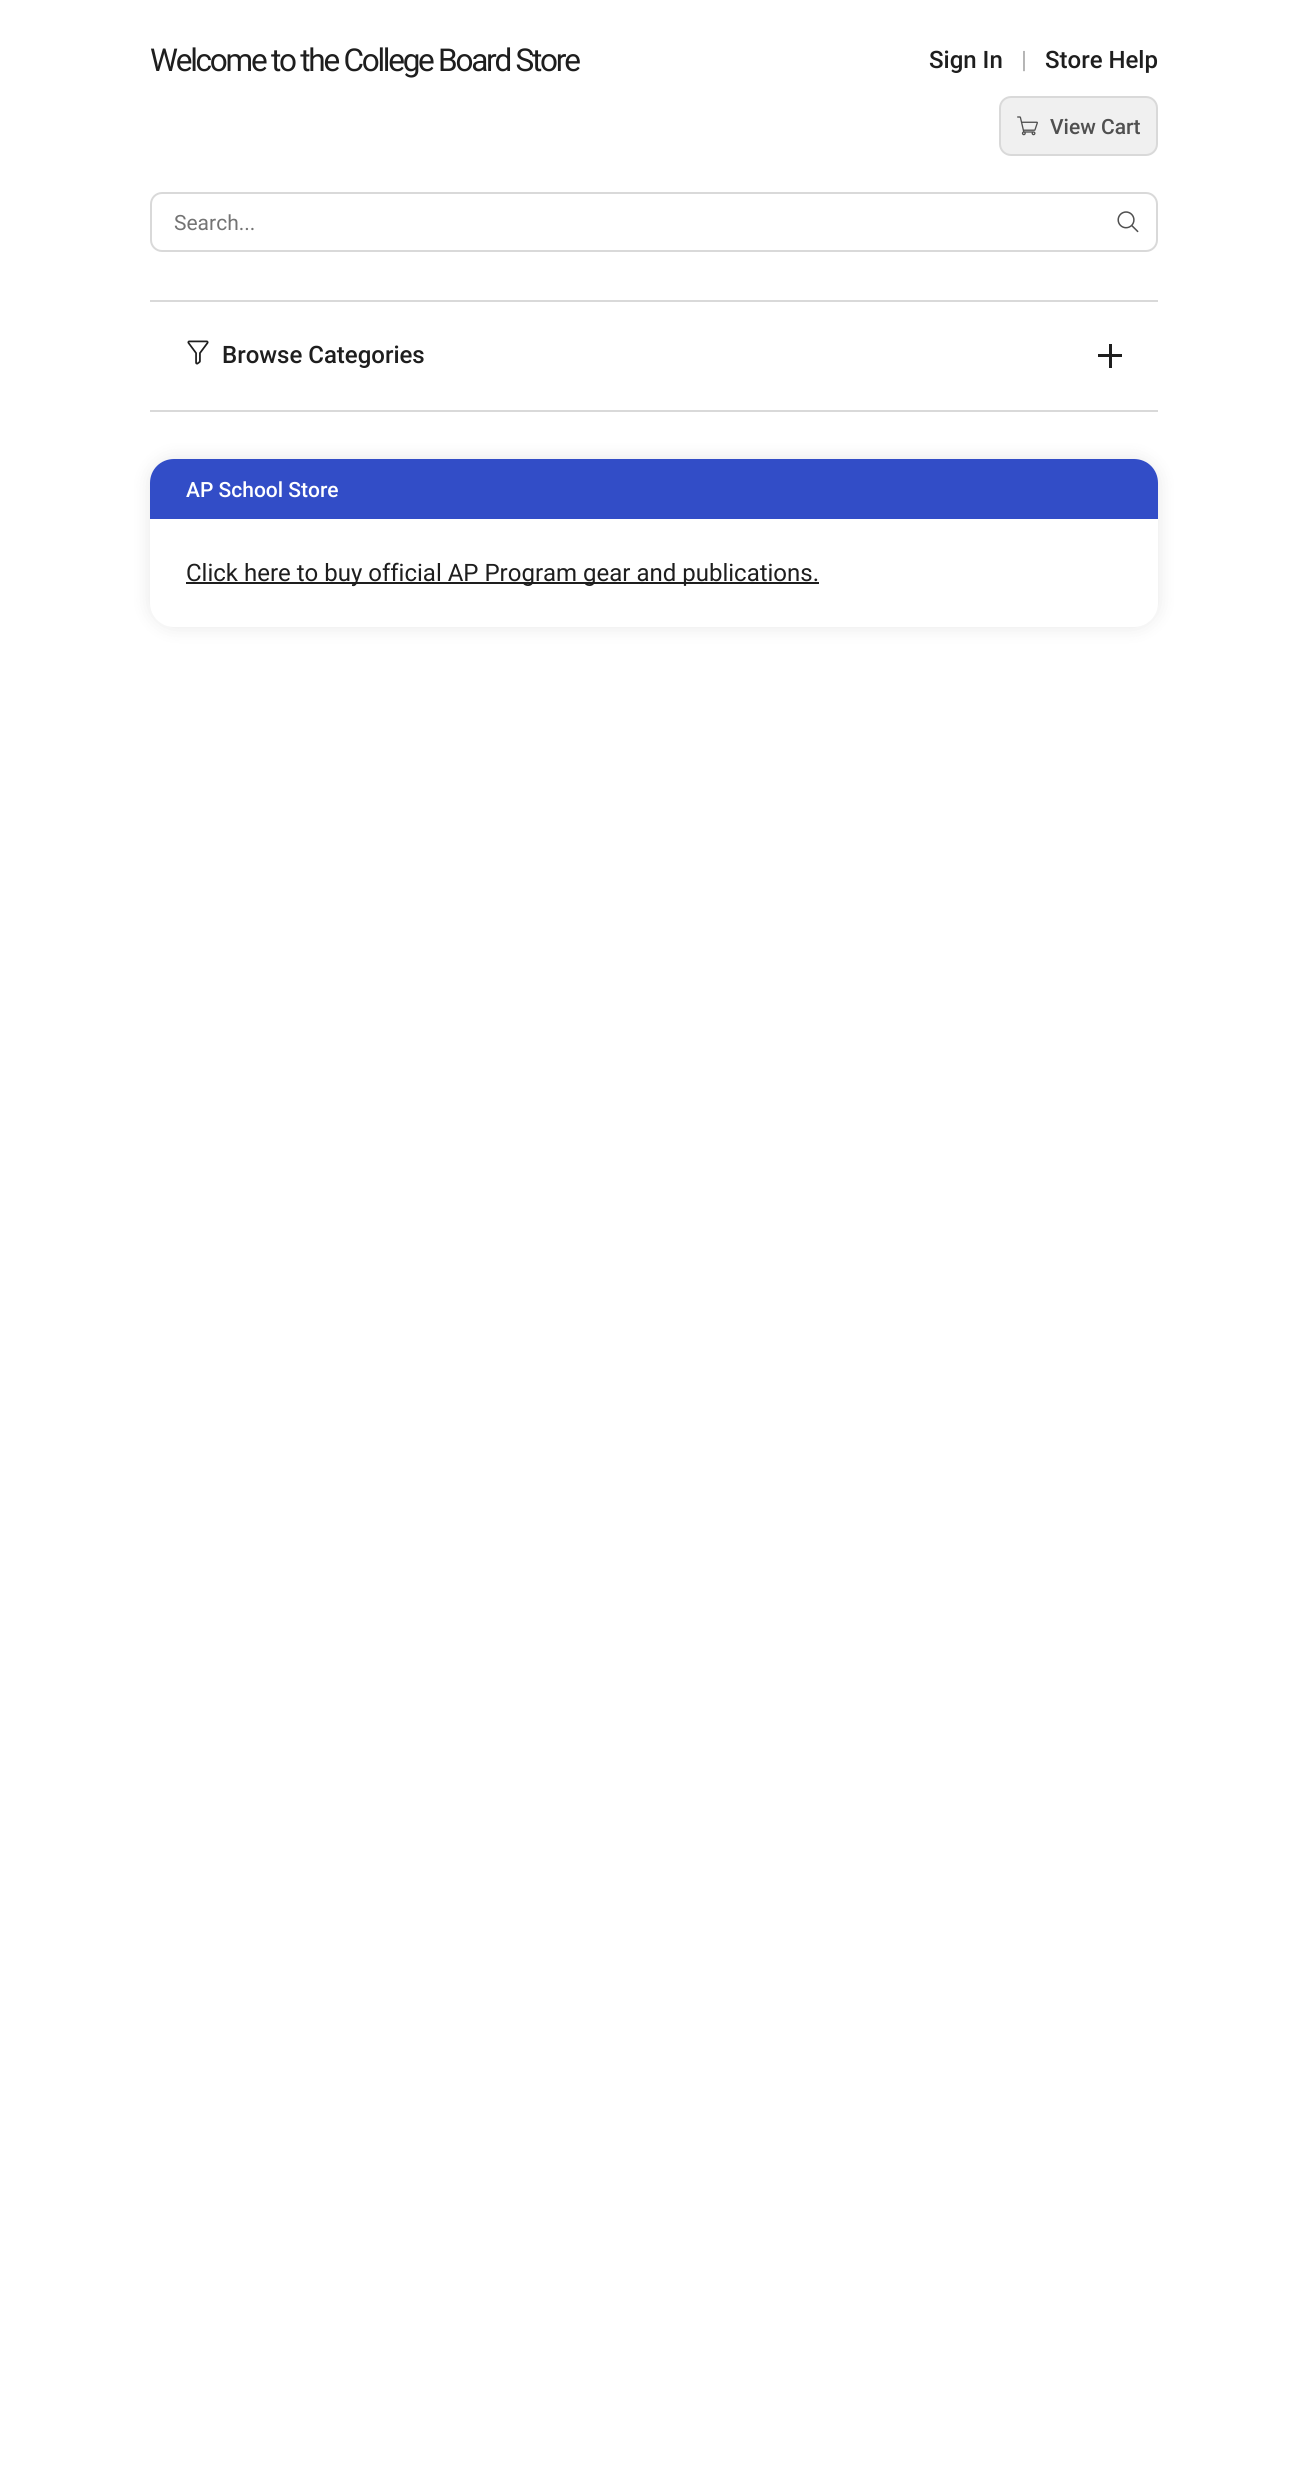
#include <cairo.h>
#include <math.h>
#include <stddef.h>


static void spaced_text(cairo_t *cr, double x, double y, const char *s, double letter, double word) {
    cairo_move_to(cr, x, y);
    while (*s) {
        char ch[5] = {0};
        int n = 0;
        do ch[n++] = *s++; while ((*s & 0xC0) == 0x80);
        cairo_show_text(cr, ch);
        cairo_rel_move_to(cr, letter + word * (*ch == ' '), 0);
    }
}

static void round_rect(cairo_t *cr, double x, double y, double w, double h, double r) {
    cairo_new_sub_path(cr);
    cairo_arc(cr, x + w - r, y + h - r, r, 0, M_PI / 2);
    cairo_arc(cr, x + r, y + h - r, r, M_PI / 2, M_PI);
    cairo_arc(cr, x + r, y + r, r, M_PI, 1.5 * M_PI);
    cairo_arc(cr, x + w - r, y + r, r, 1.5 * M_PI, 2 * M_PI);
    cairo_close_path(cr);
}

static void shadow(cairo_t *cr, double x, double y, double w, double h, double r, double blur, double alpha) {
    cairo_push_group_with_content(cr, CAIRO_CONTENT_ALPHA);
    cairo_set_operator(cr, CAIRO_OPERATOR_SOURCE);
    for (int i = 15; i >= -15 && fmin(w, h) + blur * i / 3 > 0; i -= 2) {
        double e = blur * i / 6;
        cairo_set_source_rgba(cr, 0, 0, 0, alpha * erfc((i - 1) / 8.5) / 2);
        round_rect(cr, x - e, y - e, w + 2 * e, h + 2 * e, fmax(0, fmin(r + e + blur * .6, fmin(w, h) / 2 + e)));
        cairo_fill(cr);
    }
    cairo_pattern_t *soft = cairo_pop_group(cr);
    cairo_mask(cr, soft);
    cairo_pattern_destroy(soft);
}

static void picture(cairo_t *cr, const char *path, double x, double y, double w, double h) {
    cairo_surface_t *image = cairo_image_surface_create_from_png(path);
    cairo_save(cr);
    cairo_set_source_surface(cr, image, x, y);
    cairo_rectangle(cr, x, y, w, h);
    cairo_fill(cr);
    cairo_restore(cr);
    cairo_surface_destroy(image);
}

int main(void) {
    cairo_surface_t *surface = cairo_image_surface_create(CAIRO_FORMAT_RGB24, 1307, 2491);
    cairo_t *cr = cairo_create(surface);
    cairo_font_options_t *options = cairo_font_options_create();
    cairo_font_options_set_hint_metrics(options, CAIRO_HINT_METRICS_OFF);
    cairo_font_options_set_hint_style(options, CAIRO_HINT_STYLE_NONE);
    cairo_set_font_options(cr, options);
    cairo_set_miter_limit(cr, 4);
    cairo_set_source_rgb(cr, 1, 1, 1);
    cairo_paint(cr);
    cairo_select_font_face(cr, "Roboto", CAIRO_FONT_SLANT_NORMAL, CAIRO_FONT_WEIGHT_NORMAL);
    cairo_set_font_size(cr, 31.5);
    cairo_set_source_rgb(cr, 0.118, 0.118, 0.118);
    spaced_text(cr, 150, 71, "Welcome to the College Board Store", -2.25, 0);
    cairo_select_font_face(cr, "Roboto Medium", CAIRO_FONT_SLANT_NORMAL, CAIRO_FONT_WEIGHT_NORMAL);
    cairo_set_font_size(cr, 24);
    cairo_move_to(cr, 929, 68);
    cairo_show_text(cr, "Sign In");
    cairo_set_source_rgb(cr, 0.698, 0.698, 0.698);
    cairo_move_to(cr, 1021, 68);
    cairo_show_text(cr, "|");
    cairo_set_source_rgb(cr, 0.118, 0.118, 0.118);
    cairo_move_to(cr, 1045, 68);
    cairo_show_text(cr, "Store Help");
    cairo_set_source_rgb(cr, 0.941, 0.941, 0.941);
    round_rect(cr, 1000, 97, 157, 58, 11);
    cairo_fill_preserve(cr);
    cairo_set_source_rgb(cr, 0.851, 0.851, 0.851);
    cairo_stroke(cr);
    picture(cr, "img1.png", 1017, 116, 21, 20);
    cairo_set_font_size(cr, 21);
    cairo_set_source_rgb(cr, 0.314, 0.314, 0.314);
    cairo_move_to(cr, 1050, 134);
    cairo_show_text(cr, "View Cart");
    round_rect(cr, 151, 193, 1006, 58, 11);
    cairo_set_source_rgb(cr, 0.851, 0.851, 0.851);
    cairo_stroke(cr);
    cairo_select_font_face(cr, "Roboto", CAIRO_FONT_SLANT_NORMAL, CAIRO_FONT_WEIGHT_NORMAL);
    cairo_set_source_rgb(cr, 0.451, 0.451, 0.451);
    cairo_move_to(cr, 174, 230);
    cairo_show_text(cr, "Search...");
    picture(cr, "img2.png", 1117, 211, 22, 22);
    cairo_set_source_rgb(cr, 0.851, 0.851, 0.851);
    cairo_rectangle(cr, 150, 410, 1008, 2);
    cairo_fill(cr);
    cairo_rectangle(cr, 150, 300, 1008, 2);
    cairo_fill(cr);
    picture(cr, "img3.png", 187, 340, 22, 25);
    cairo_select_font_face(cr, "Roboto Medium", CAIRO_FONT_SLANT_NORMAL, CAIRO_FONT_WEIGHT_NORMAL);
    cairo_set_font_size(cr, 24);
    cairo_set_source_rgb(cr, 0.118, 0.118, 0.118);
    cairo_move_to(cr, 222, 363);
    cairo_show_text(cr, "Browse Categories");
    cairo_rectangle(cr, 1109, 344, 3, 24);
    cairo_fill(cr);
    cairo_rectangle(cr, 1098, 354, 24, 3);
    cairo_fill(cr);
    cairo_set_source_rgb(cr, 0, 0, 0);
    shadow(cr, 150, 459, 1008, 168, 24, 9, 0.1);
    cairo_set_source_rgb(cr, 1, 1, 1);
    round_rect(cr, 150, 459, 1008, 168, 24);
    cairo_fill(cr);
    cairo_set_source_rgb(cr, 0.196, 0.302, 0.78);
    cairo_new_path(cr);
    cairo_move_to(cr, 174, 459);
    cairo_line_to(cr, 1134, 459);
    cairo_curve_to(cr, 1147.5, 459, 1158, 469.5, 1158, 483);
    cairo_line_to(cr, 1158, 519);
    cairo_line_to(cr, 150, 519);
    cairo_line_to(cr, 150, 483);
    cairo_curve_to(cr, 150, 469.5, 160.5, 459, 174, 459);
    cairo_close_path(cr);
    cairo_fill(cr);
    cairo_set_font_size(cr, 21);
    cairo_set_source_rgb(cr, 1, 1, 1);
    cairo_move_to(cr, 186, 497);
    cairo_show_text(cr, "AP School Store");
    cairo_set_source_rgb(cr, 0.118, 0.118, 0.118);
    cairo_rectangle(cr, 186, 582, 633, 2);
    cairo_fill(cr);
    cairo_select_font_face(cr, "Roboto", CAIRO_FONT_SLANT_NORMAL, CAIRO_FONT_WEIGHT_NORMAL);
    cairo_set_font_size(cr, 24);
    cairo_move_to(cr, 186, 581);
    cairo_show_text(cr, "Click here to buy official AP Program gear and publications.");
    cairo_surface_write_to_png(surface, "page.png");
    cairo_font_options_destroy(options);
    cairo_destroy(cr);
    cairo_surface_destroy(surface);
    return 0;
}
